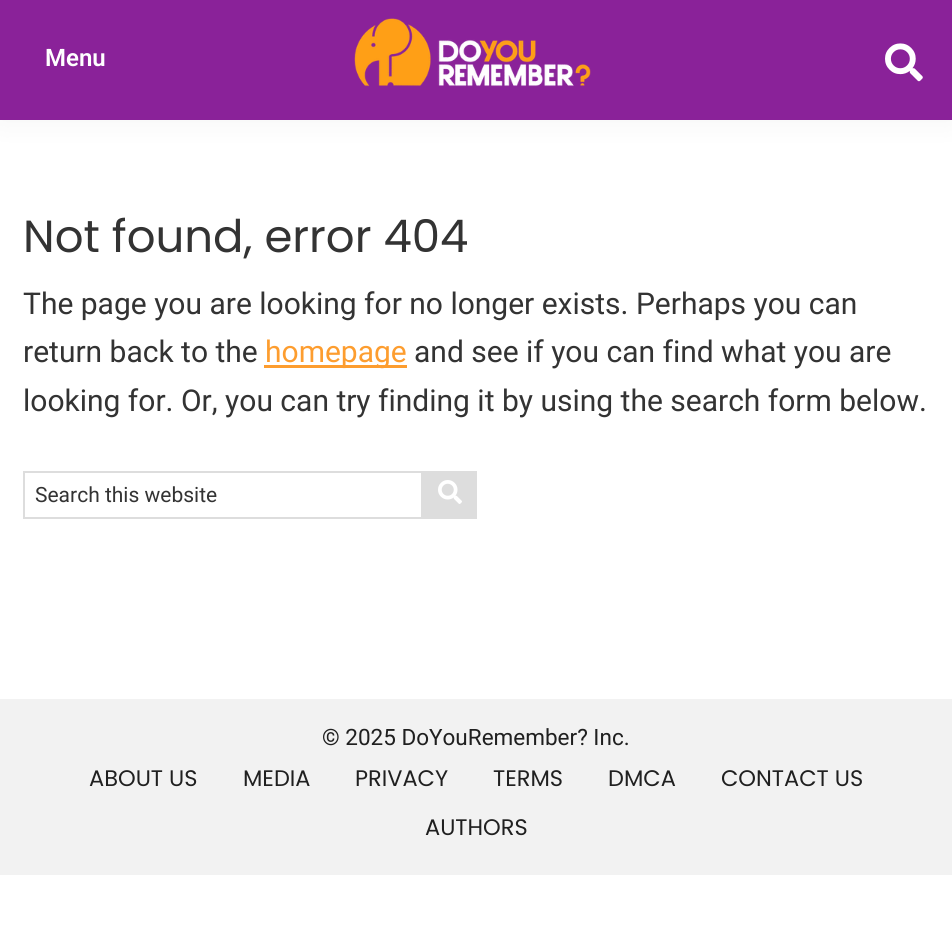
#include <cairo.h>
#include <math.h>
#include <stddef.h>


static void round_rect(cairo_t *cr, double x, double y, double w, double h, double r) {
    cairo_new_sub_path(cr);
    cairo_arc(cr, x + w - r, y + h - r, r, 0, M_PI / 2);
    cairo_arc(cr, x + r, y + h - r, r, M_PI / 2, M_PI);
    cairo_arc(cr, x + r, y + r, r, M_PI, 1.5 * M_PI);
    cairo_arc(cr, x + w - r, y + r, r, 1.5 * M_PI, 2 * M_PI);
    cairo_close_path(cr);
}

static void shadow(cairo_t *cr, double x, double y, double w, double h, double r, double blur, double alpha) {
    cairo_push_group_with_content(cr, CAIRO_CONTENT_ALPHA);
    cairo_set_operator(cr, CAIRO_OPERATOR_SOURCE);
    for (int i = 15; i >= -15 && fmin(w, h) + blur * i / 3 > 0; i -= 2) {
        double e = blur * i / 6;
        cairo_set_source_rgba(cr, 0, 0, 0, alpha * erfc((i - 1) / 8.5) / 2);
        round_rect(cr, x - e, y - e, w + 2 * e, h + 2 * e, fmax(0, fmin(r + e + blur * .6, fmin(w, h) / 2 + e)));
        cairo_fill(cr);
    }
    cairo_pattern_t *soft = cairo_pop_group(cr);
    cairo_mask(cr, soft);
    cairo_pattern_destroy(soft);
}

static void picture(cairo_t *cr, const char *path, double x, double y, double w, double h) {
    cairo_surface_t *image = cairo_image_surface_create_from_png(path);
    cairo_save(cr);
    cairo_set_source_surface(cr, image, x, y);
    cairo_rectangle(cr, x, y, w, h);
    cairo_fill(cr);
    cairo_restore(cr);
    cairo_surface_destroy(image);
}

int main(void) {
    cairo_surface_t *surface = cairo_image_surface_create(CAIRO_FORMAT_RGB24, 952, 950);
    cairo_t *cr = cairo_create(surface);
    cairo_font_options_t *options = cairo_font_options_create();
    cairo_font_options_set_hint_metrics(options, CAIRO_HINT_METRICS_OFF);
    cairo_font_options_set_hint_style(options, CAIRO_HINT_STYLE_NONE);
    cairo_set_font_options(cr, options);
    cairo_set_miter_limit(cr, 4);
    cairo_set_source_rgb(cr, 1, 1, 1);
    cairo_paint(cr);
    cairo_set_source_rgb(cr, 0, 0, 0);
    shadow(cr, 0, 0, 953, 120, 0, 15, 0.05);
    cairo_set_source_rgb(cr, 0.541, 0.133, 0.6);
    cairo_rectangle(cr, 0, 0, 952, 120);
    cairo_fill(cr);
    cairo_select_font_face(cr, "Roboto SemiBold", CAIRO_FONT_SLANT_NORMAL, CAIRO_FONT_WEIGHT_NORMAL);
    cairo_set_font_size(cr, 24);
    cairo_set_source_rgb(cr, 1, 1, 1);
    cairo_move_to(cr, 45, 66);
    cairo_show_text(cr, "Menu");
    picture(cr, "img1.png", 354, 18, 237, 69);
    picture(cr, "img2.png", 885, 43, 38, 39);
    cairo_select_font_face(cr, "Poppins", CAIRO_FONT_SLANT_NORMAL, CAIRO_FONT_WEIGHT_NORMAL);
    cairo_set_font_size(cr, 45);
    cairo_set_source_rgb(cr, 0.2, 0.2, 0.2);
    cairo_move_to(cr, 23, 252);
    cairo_show_text(cr, "Not found, error 404");
    cairo_select_font_face(cr, "Roboto", CAIRO_FONT_SLANT_NORMAL, CAIRO_FONT_WEIGHT_NORMAL);
    cairo_set_font_size(cr, 30);
    cairo_move_to(cr, 23, 314);
    cairo_show_text(cr, "The page you are looking for no longer exists. Perhaps you can");
    cairo_move_to(cr, 23, 362);
    cairo_show_text(cr, "return back to the");
    cairo_set_source_rgb(cr, 0.992, 0.616, 0.184);
    cairo_rectangle(cr, 264, 365, 143, 3);
    cairo_fill(cr);
    cairo_move_to(cr, 265, 362);
    cairo_show_text(cr, "homepage");
    cairo_set_source_rgb(cr, 0.2, 0.2, 0.2);
    cairo_move_to(cr, 414, 362);
    cairo_show_text(cr, "and see if you can find what you are");
    cairo_move_to(cr, 23, 411);
    cairo_show_text(cr, "looking for. Or, you can try finding it by using the search form below.");
    cairo_rectangle(cr, 24, 472, 398, 46);
    cairo_set_source_rgb(cr, 0.867, 0.867, 0.867);
    cairo_stroke(cr);
    cairo_set_font_size(cr, 21);
    cairo_set_source_rgb(cr, 0.2, 0.2, 0.2);
    cairo_move_to(cr, 35, 502);
    cairo_show_text(cr, "Search this website");
    cairo_set_source_rgb(cr, 0.867, 0.867, 0.867);
    cairo_rectangle(cr, 423, 471, 54, 48);
    cairo_fill(cr);
    picture(cr, "img3.png", 438, 480, 24, 24);
    cairo_set_source_rgb(cr, 0.949, 0.949, 0.949);
    cairo_rectangle(cr, 0, 699, 952, 176);
    cairo_fill(cr);
    cairo_set_font_size(cr, 22.5);
    cairo_set_source_rgb(cr, 0.125, 0.125, 0.125);
    cairo_move_to(cr, 322, 745);
    cairo_show_text(cr, "© 2025 DoYouRemember? Inc.");
    cairo_select_font_face(cr, "Poppins", CAIRO_FONT_SLANT_NORMAL, CAIRO_FONT_WEIGHT_NORMAL);
    cairo_move_to(cr, 89, 786);
    cairo_show_text(cr, "ABOUT US");
    cairo_move_to(cr, 243, 786);
    cairo_show_text(cr, "MEDIA");
    cairo_move_to(cr, 355, 786);
    cairo_show_text(cr, "PRIVACY");
    cairo_move_to(cr, 493, 786);
    cairo_show_text(cr, "TERMS");
    cairo_move_to(cr, 608, 786);
    cairo_show_text(cr, "DMCA");
    cairo_move_to(cr, 721, 786);
    cairo_show_text(cr, "CONTACT US");
    cairo_move_to(cr, 425, 835);
    cairo_show_text(cr, "AUTHORS");
    cairo_surface_write_to_png(surface, "page.png");
    cairo_font_options_destroy(options);
    cairo_destroy(cr);
    cairo_surface_destroy(surface);
    return 0;
}
